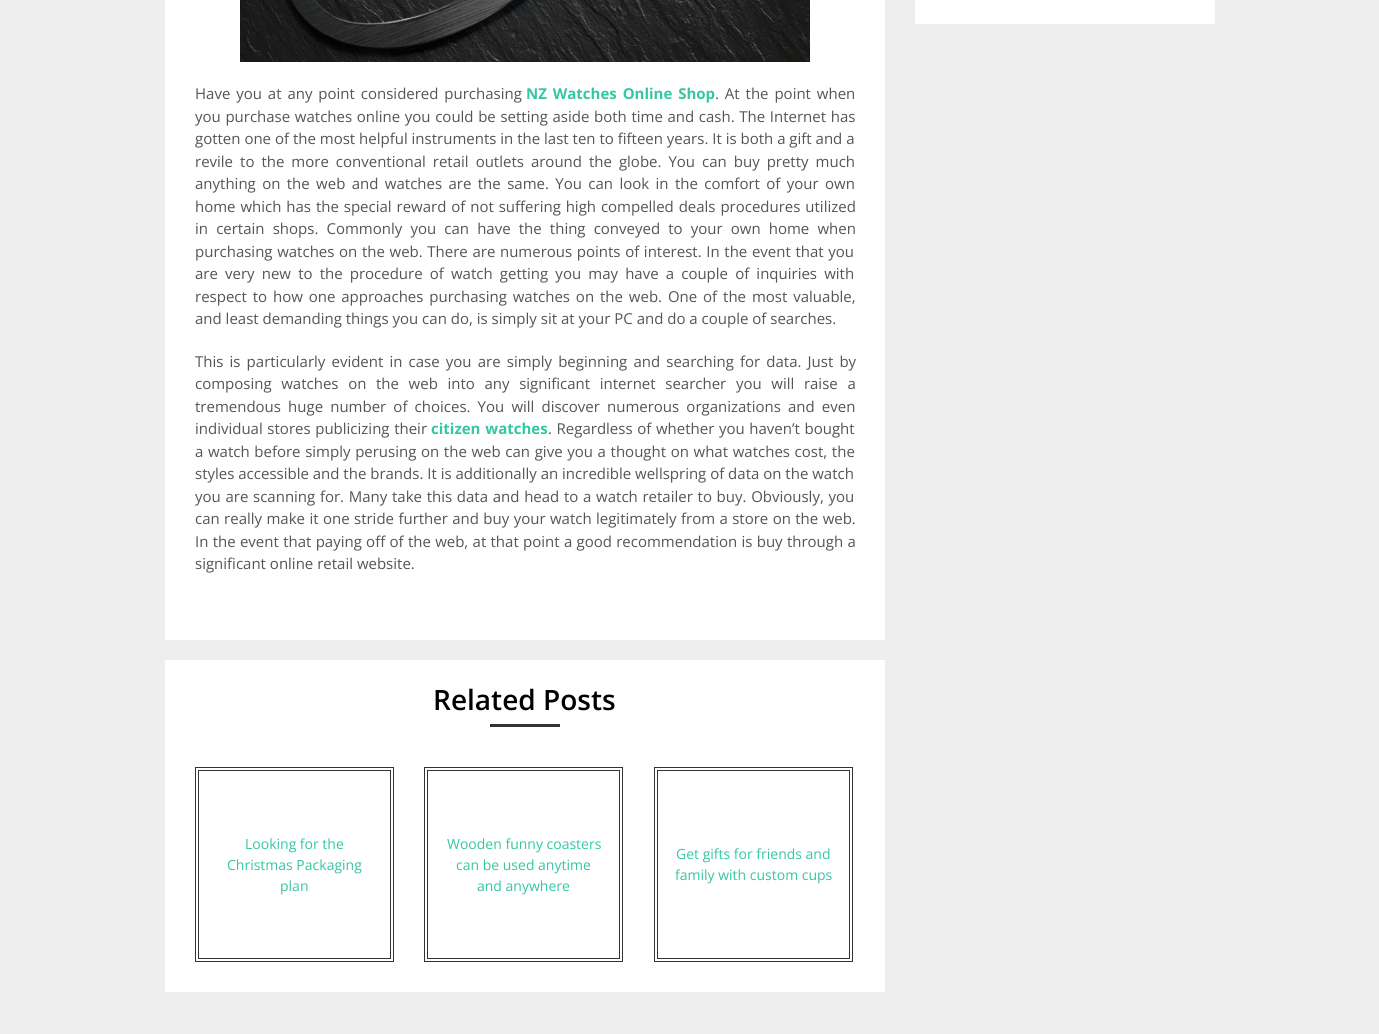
#include <cairo.h>
#include <math.h>
#include <stddef.h>


static void spaced_text(cairo_t *cr, double x, double y, const char *s, double letter, double word) {
    cairo_move_to(cr, x, y);
    while (*s) {
        char ch[5] = {0};
        int n = 0;
        do ch[n++] = *s++; while ((*s & 0xC0) == 0x80);
        cairo_show_text(cr, ch);
        cairo_rel_move_to(cr, letter + word * (*ch == ' '), 0);
    }
}

static void picture(cairo_t *cr, const char *path, double x, double y, double w, double h) {
    cairo_surface_t *image = cairo_image_surface_create_from_png(path);
    cairo_save(cr);
    cairo_set_source_surface(cr, image, x, y);
    cairo_rectangle(cr, x, y, w, h);
    cairo_fill(cr);
    cairo_restore(cr);
    cairo_surface_destroy(image);
}

int main(void) {
    cairo_surface_t *surface = cairo_image_surface_create(CAIRO_FORMAT_RGB24, 1379, 1034);
    cairo_t *cr = cairo_create(surface);
    cairo_font_options_t *options = cairo_font_options_create();
    cairo_font_options_set_hint_metrics(options, CAIRO_HINT_METRICS_OFF);
    cairo_font_options_set_hint_style(options, CAIRO_HINT_STYLE_NONE);
    cairo_set_font_options(cr, options);
    cairo_set_miter_limit(cr, 4);
    cairo_set_source_rgb(cr, 0.933, 0.933, 0.933);
    cairo_paint(cr);
    cairo_set_source_rgb(cr, 1, 1, 1);
    cairo_rectangle(cr, 915, 0, 300, 24);
    cairo_fill(cr);
    cairo_rectangle(cr, 165, 0, 720, 640);
    cairo_fill(cr);
    picture(cr, "img1.png", 240, 0, 570, 62);
    cairo_select_font_face(cr, "Open Sans", CAIRO_FONT_SLANT_NORMAL, CAIRO_FONT_WEIGHT_NORMAL);
    cairo_set_font_size(cr, 15);
    cairo_set_source_rgb(cr, 0.333, 0.333, 0.333);
    spaced_text(cr, 195, 99, "Have you at any point considered purchasing", 0, 2);
    cairo_select_font_face(cr, "Open Sans", CAIRO_FONT_SLANT_NORMAL, CAIRO_FONT_WEIGHT_BOLD);
    cairo_set_source_rgb(cr, 0.208, 0.776, 0.635);
    spaced_text(cr, 526, 99, "NZ Watches Online Shop", 0, 2);
    cairo_select_font_face(cr, "Open Sans", CAIRO_FONT_SLANT_NORMAL, CAIRO_FONT_WEIGHT_NORMAL);
    cairo_set_source_rgb(cr, 0.333, 0.333, 0.333);
    spaced_text(cr, 715, 99, ". At the point when", 0, 2);
    spaced_text(cr, 195, 122, "you purchase watches online you could be setting aside both time and cash. The Internet has", 0, 0.75);
    cairo_move_to(cr, 195, 144);
    cairo_show_text(cr, "gotten one of the most helpful instruments in the last ten to fifteen years. It is both a gift and a");
    spaced_text(cr, 195, 167, "revile to the more conventional retail outlets around the globe. You can buy pretty much", 0, 3.1);
    spaced_text(cr, 195, 189, "anything on the web and watches are the same. You can look in the comfort of your own", 0, 2.5);
    spaced_text(cr, 195, 212, "home which has the special reward of not suffering high compelled deals procedures utilized", 0, 1);
    spaced_text(cr, 195, 234, "in certain shops. Commonly you can have the thing conveyed to your own home when", 0, 4.25);
    spaced_text(cr, 195, 257, "purchasing watches on the web. There are numerous points of interest. In the event that you", 0, 0.75);
    spaced_text(cr, 195, 279, "are very new to the procedure of watch getting you may have a couple of inquiries with", 0, 3.25);
    spaced_text(cr, 195, 302, "respect to how one approaches purchasing watches on the web. One of the most valuable,", 0, 2);
    cairo_move_to(cr, 195, 324);
    cairo_show_text(cr, "and least demanding things you can do, is simply sit at your PC and do a couple of searches.");
    spaced_text(cr, 195, 367, "This is particularly evident in case you are simply beginning and searching for data. Just by", 0, 2.25);
    spaced_text(cr, 195, 389, "composing watches on the web into any significant internet searcher you will raise a", 0, 5.75);
    spaced_text(cr, 195, 412, "tremendous huge number of choices. You will discover numerous organizations and even", 0, 3.25);
    spaced_text(cr, 195, 434, "individual stores publicizing their", 0, 0.75);
    cairo_select_font_face(cr, "Open Sans", CAIRO_FONT_SLANT_NORMAL, CAIRO_FONT_WEIGHT_BOLD);
    cairo_set_source_rgb(cr, 0.208, 0.776, 0.635);
    spaced_text(cr, 431, 434, "citizen watches", 0, 1);
    cairo_select_font_face(cr, "Open Sans", CAIRO_FONT_SLANT_NORMAL, CAIRO_FONT_WEIGHT_NORMAL);
    cairo_set_source_rgb(cr, 0.333, 0.333, 0.333);
    spaced_text(cr, 548, 434, ". Regardless of whether you haven’t bought", 0, 0.75);
    spaced_text(cr, 195, 457, "a watch before simply perusing on the web can give you a thought on what watches cost, the", 0, 0.75);
    cairo_move_to(cr, 195, 479);
    cairo_show_text(cr, "styles accessible and the brands. It is additionally an incredible wellspring of data on the watch");
    spaced_text(cr, 195, 502, "you are scanning for. Many take this data and head to a watch retailer to buy. Obviously, you", 0, 0.8);
    spaced_text(cr, 195, 524, "can really make it one stride further and buy your watch legitimately from a store on the web.", 0, 0.5);
    spaced_text(cr, 195, 547, "In the event that paying off of the web, at that point a good recommendation is buy through a", 0, 0.4);
    cairo_move_to(cr, 195, 569);
    cairo_show_text(cr, "significant online retail website.");
    cairo_set_source_rgb(cr, 1, 1, 1);
    cairo_rectangle(cr, 165, 660, 720, 332);
    cairo_fill(cr);
    cairo_select_font_face(cr, "Open Sans SemiBold", CAIRO_FONT_SLANT_NORMAL, CAIRO_FONT_WEIGHT_NORMAL);
    cairo_set_font_size(cr, 28);
    cairo_set_source_rgb(cr, 0, 0, 0);
    cairo_move_to(cr, 433, 710);
    cairo_show_text(cr, "Related Posts");
    cairo_set_source_rgb(cr, 0.2, 0.2, 0.2);
    cairo_rectangle(cr, 490, 724, 70, 3);
    cairo_fill(cr);
    cairo_rectangle(cr, 195.5, 767.5, 198, 194);
    cairo_set_line_width(cr, 1);
    cairo_stroke(cr);
    cairo_rectangle(cr, 198.5, 770.5, 192, 188);
    cairo_stroke(cr);
    cairo_select_font_face(cr, "Open Sans", CAIRO_FONT_SLANT_NORMAL, CAIRO_FONT_WEIGHT_NORMAL);
    cairo_set_font_size(cr, 14);
    cairo_set_source_rgb(cr, 0.208, 0.776, 0.635);
    cairo_move_to(cr, 245, 849);
    cairo_show_text(cr, "Looking for the");
    cairo_move_to(cr, 227, 870);
    cairo_show_text(cr, "Christmas Packaging");
    cairo_move_to(cr, 280, 891);
    cairo_show_text(cr, "plan");
    cairo_rectangle(cr, 424.5, 767.5, 198, 194);
    cairo_set_source_rgb(cr, 0.2, 0.2, 0.2);
    cairo_stroke(cr);
    cairo_rectangle(cr, 427.5, 770.5, 192, 188);
    cairo_stroke(cr);
    cairo_set_source_rgb(cr, 0.208, 0.776, 0.635);
    cairo_move_to(cr, 447, 849);
    cairo_show_text(cr, "Wooden funny coasters");
    cairo_move_to(cr, 456, 870);
    cairo_show_text(cr, "can be used anytime");
    cairo_move_to(cr, 477, 891);
    cairo_show_text(cr, "and anywhere");
    cairo_rectangle(cr, 654.5, 767.5, 198, 194);
    cairo_set_source_rgb(cr, 0.2, 0.2, 0.2);
    cairo_stroke(cr);
    cairo_rectangle(cr, 657.5, 770.5, 192, 188);
    cairo_stroke(cr);
    cairo_set_source_rgb(cr, 0.208, 0.776, 0.635);
    cairo_move_to(cr, 676, 859);
    cairo_show_text(cr, "Get gifts for friends and");
    cairo_move_to(cr, 675, 880);
    cairo_show_text(cr, "family with custom cups");
    cairo_surface_write_to_png(surface, "page.png");
    cairo_font_options_destroy(options);
    cairo_destroy(cr);
    cairo_surface_destroy(surface);
    return 0;
}
